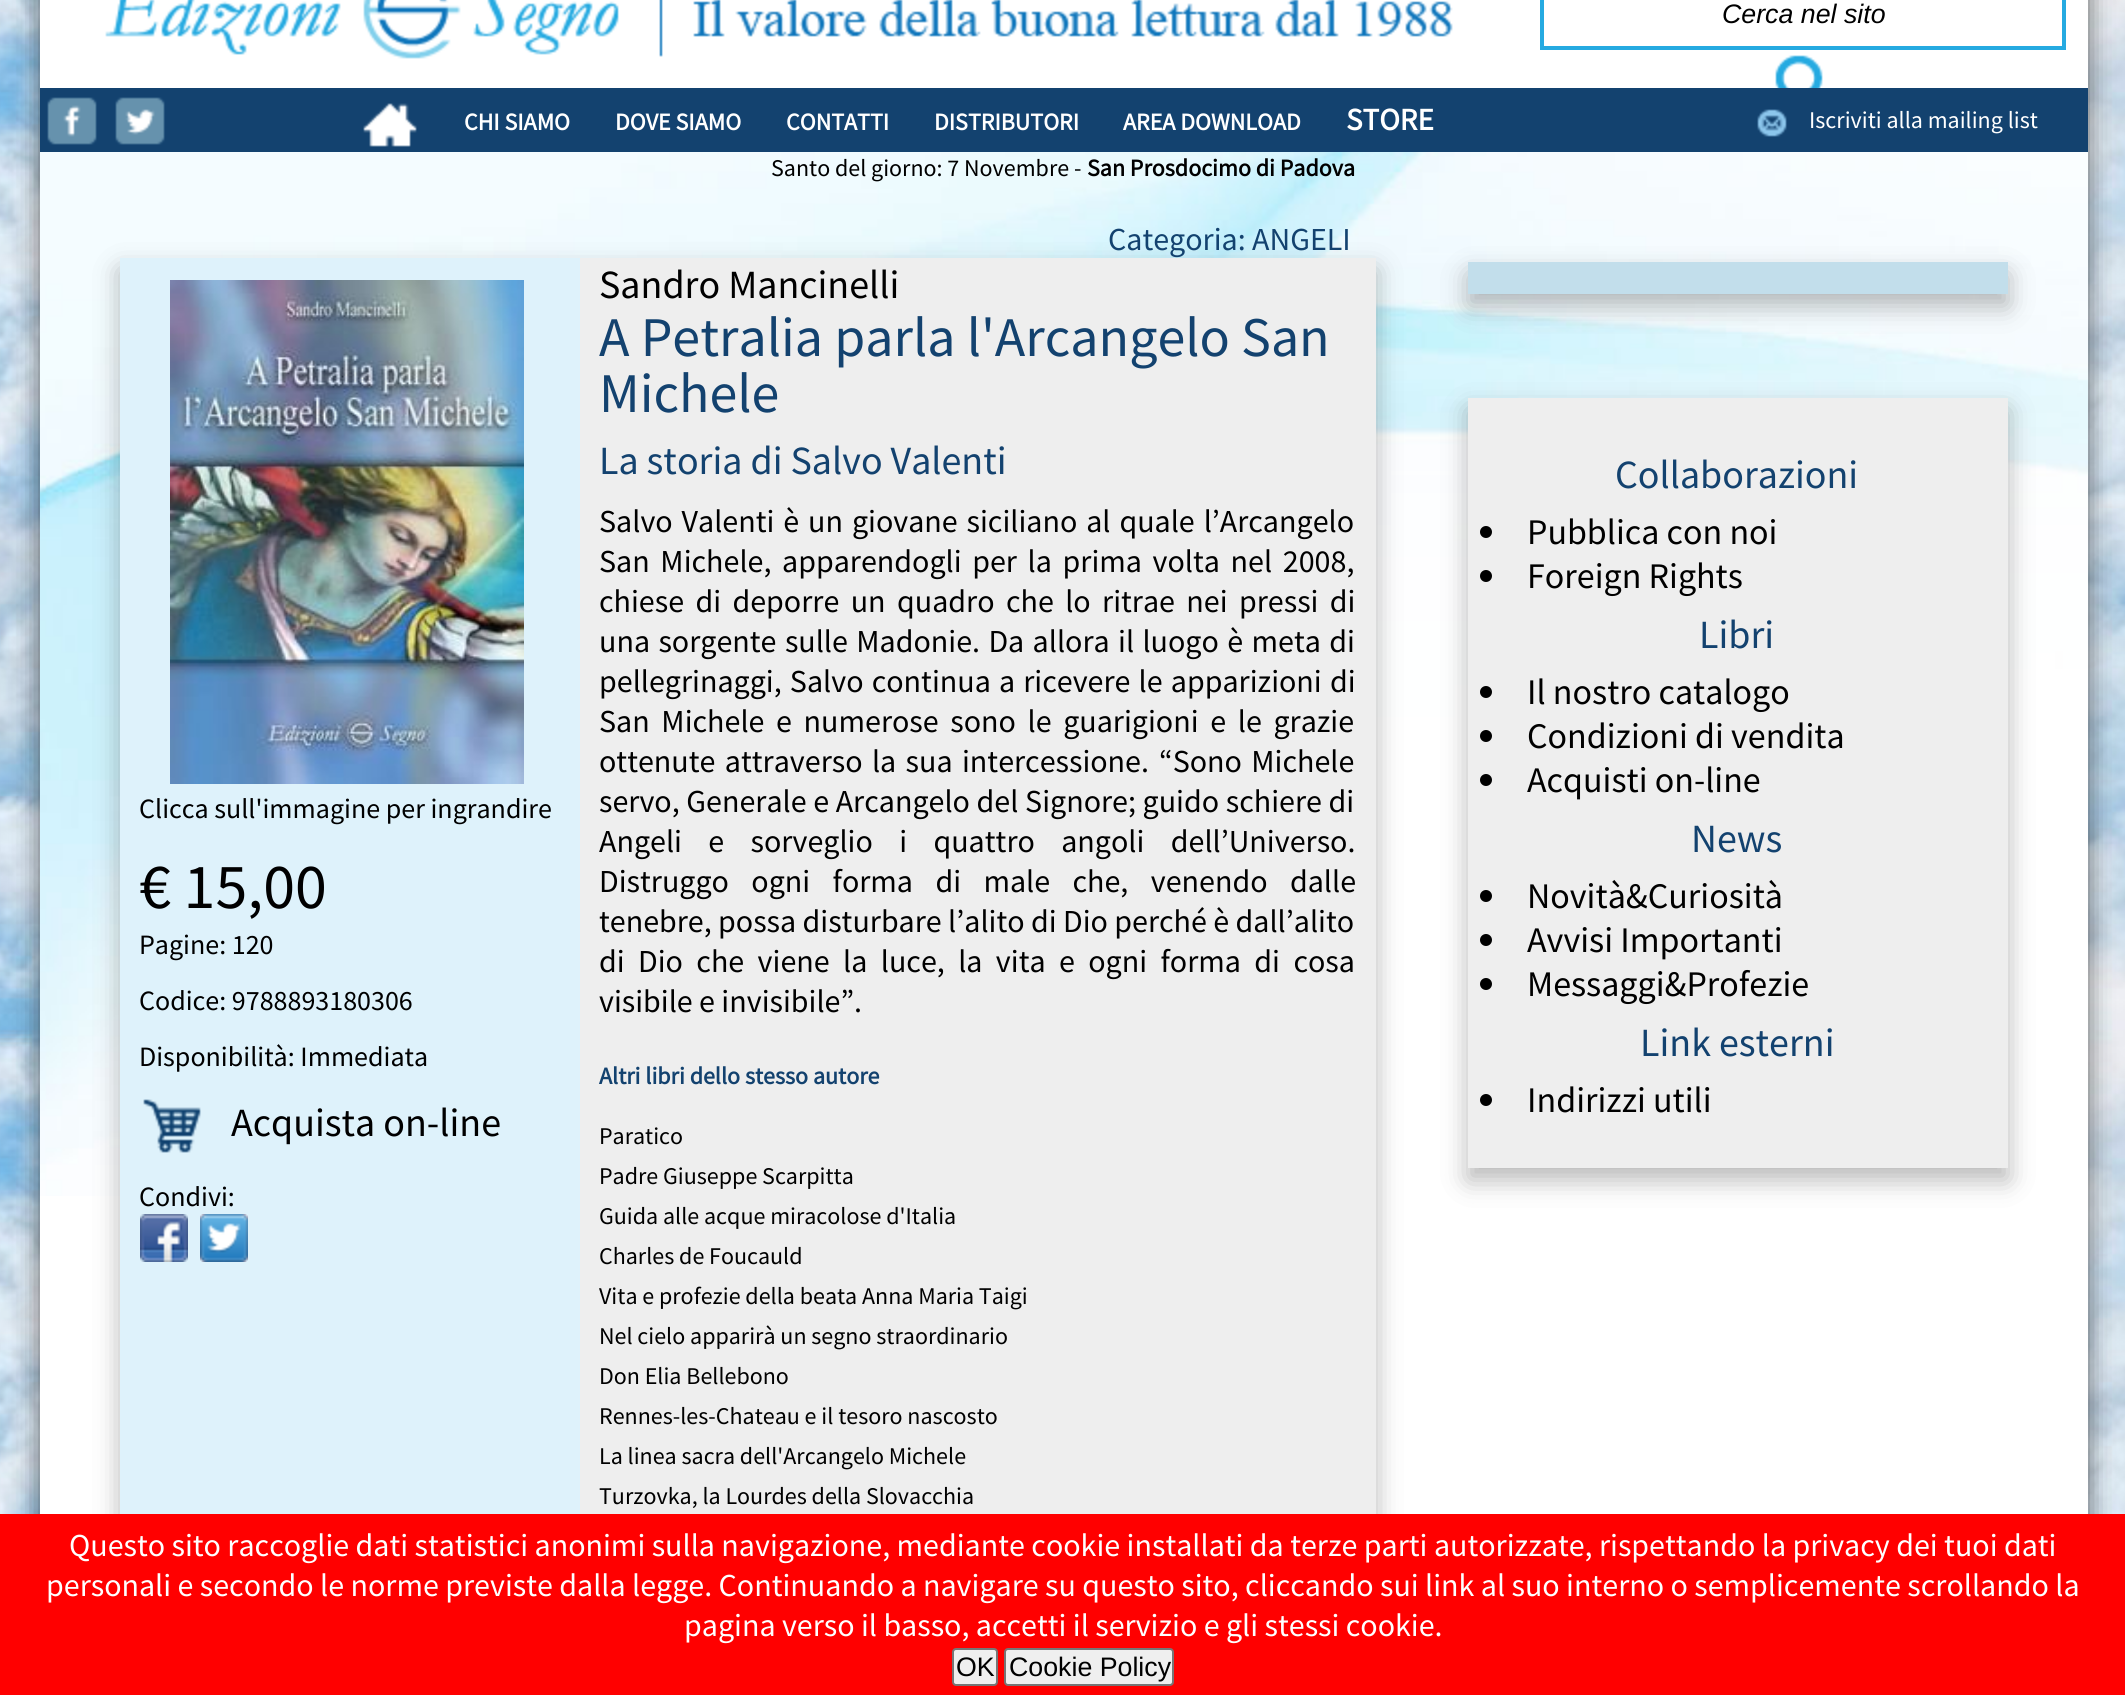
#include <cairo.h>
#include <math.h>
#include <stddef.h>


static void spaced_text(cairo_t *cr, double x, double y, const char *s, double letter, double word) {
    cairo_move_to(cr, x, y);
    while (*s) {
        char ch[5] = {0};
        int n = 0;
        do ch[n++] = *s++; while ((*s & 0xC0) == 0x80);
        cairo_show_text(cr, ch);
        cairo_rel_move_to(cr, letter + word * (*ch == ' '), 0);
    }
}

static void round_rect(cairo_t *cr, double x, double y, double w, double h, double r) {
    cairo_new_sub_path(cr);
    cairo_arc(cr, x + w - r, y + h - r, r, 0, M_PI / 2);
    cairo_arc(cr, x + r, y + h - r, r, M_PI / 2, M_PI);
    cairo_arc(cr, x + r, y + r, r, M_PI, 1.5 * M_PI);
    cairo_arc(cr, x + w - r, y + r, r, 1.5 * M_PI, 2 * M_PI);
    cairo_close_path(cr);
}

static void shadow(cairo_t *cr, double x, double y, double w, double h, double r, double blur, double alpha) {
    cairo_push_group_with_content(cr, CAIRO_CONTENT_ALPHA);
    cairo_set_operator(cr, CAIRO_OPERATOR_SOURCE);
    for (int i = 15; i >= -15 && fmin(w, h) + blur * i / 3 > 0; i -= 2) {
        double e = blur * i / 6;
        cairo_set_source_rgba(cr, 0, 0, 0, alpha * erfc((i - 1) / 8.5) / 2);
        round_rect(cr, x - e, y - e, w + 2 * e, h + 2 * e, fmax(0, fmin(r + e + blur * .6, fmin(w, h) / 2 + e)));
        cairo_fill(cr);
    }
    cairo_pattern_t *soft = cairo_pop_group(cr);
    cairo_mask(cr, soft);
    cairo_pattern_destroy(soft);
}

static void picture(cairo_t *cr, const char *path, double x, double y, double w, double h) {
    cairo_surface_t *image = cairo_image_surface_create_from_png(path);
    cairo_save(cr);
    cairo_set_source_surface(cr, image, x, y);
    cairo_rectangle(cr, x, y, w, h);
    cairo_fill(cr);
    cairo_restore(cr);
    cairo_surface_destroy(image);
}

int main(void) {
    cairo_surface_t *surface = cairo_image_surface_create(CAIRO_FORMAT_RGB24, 2125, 1695);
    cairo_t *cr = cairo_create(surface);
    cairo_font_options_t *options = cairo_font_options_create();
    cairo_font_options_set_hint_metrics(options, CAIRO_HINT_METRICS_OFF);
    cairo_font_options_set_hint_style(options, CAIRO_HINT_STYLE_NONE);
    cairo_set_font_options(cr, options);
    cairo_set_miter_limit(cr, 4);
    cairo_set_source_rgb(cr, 1, 1, 1);
    cairo_paint(cr);
    picture(cr, "img1.png", 0, 0, 2125, 1514);
    cairo_set_source_rgb(cr, 0.196, 0.196, 0.196);
    shadow(cr, 40, -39, 2048, 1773, 0, 13, 0.75);
    cairo_set_source_rgb(cr, 1, 1, 1);
    cairo_rectangle(cr, 40, 1196, 2048, 318);
    cairo_fill(cr);
    picture(cr, "img2.png", 40, 152, 2048, 1044);
    cairo_rectangle(cr, 40, 0, 2048, 88);
    cairo_fill(cr);
    picture(cr, "img3.png", 105, 0, 1348, 59);
    cairo_rectangle(cr, 1542, -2, 522, 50);
    cairo_set_source_rgb(cr, 0.145, 0.667, 0.882);
    cairo_set_line_width(cr, 4);
    cairo_stroke(cr);
    cairo_select_font_face(cr, "Liberation Sans", CAIRO_FONT_SLANT_ITALIC, CAIRO_FONT_WEIGHT_NORMAL);
    cairo_set_font_size(cr, 26.75);
    cairo_set_source_rgb(cr, 0, 0, 0);
    cairo_move_to(cr, 1722, 23);
    cairo_show_text(cr, "Cerca nel sito");
    picture(cr, "img4.png", 1775, 55, 48, 33);
    cairo_set_source_rgb(cr, 0.078, 0.259, 0.435);
    cairo_rectangle(cr, 40, 88, 2048, 64);
    cairo_fill(cr);
    picture(cr, "img5.png", 47, 97, 50, 48);
    picture(cr, "img6.png", 115, 97, 50, 48);
    picture(cr, "img7.png", 363, 103, 54, 44);
    cairo_select_font_face(cr, "Source Sans Pro", CAIRO_FONT_SLANT_NORMAL, CAIRO_FONT_WEIGHT_BOLD);
    cairo_set_font_size(cr, 24);
    cairo_set_source_rgb(cr, 1, 1, 1);
    cairo_move_to(cr, 464, 130);
    cairo_show_text(cr, "CHI SIAMO");
    cairo_move_to(cr, 615, 130);
    cairo_show_text(cr, "DOVE SIAMO");
    cairo_move_to(cr, 786, 130);
    cairo_show_text(cr, "CONTATTI");
    cairo_move_to(cr, 934, 130);
    cairo_show_text(cr, "DISTRIBUTORI");
    cairo_move_to(cr, 1123, 130);
    cairo_show_text(cr, "AREA DOWNLOAD");
    cairo_set_font_size(cr, 31);
    cairo_move_to(cr, 1346, 130);
    cairo_show_text(cr, "STORE");
    picture(cr, "img8.png", 1757, 109, 30, 28);
    cairo_select_font_face(cr, "Source Sans Pro", CAIRO_FONT_SLANT_NORMAL, CAIRO_FONT_WEIGHT_NORMAL);
    cairo_set_font_size(cr, 24);
    cairo_move_to(cr, 1809, 128);
    cairo_show_text(cr, "Iscriviti alla mailing list");
    cairo_set_source_rgb(cr, 0, 0, 0);
    cairo_move_to(cr, 771, 176);
    cairo_show_text(cr, "Santo del giorno: 7 Novembre -");
    cairo_select_font_face(cr, "Source Sans Pro", CAIRO_FONT_SLANT_NORMAL, CAIRO_FONT_WEIGHT_BOLD);
    cairo_move_to(cr, 1087, 176);
    cairo_show_text(cr, "San Prosdocimo di Padova");
    cairo_set_source_rgb(cr, 0.196, 0.196, 0.196);
    shadow(cr, 120, 270, 1256, 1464, 0, 13, 0.35);
    cairo_select_font_face(cr, "Source Sans Pro", CAIRO_FONT_SLANT_NORMAL, CAIRO_FONT_WEIGHT_NORMAL);
    cairo_set_font_size(cr, 32);
    cairo_set_source_rgb(cr, 0.078, 0.259, 0.435);
    cairo_move_to(cr, 1108, 250);
    cairo_show_text(cr, "Categoria: ANGELI");
    cairo_set_source_rgb(cr, 0.871, 0.949, 0.984);
    cairo_rectangle(cr, 120, 258, 460, 1256);
    cairo_fill(cr);
    picture(cr, "img9.png", 170, 280, 354, 504);
    cairo_set_font_size(cr, 28);
    cairo_set_source_rgb(cr, 0, 0, 0);
    cairo_move_to(cr, 139, 818);
    cairo_show_text(cr, "Clicca sull'immagine per ingrandire");
    cairo_set_font_size(cr, 64);
    cairo_move_to(cr, 139, 908);
    cairo_show_text(cr, "€ 15,00");
    cairo_set_font_size(cr, 28);
    cairo_move_to(cr, 139, 954);
    cairo_show_text(cr, "Pagine: 120");
    cairo_move_to(cr, 139, 1010);
    cairo_show_text(cr, "Codice: 9788893180306");
    cairo_move_to(cr, 139, 1066);
    cairo_show_text(cr, "Disponibilità: Immediata");
    picture(cr, "img10.png", 143, 1099, 58, 54);
    cairo_set_font_size(cr, 40);
    cairo_move_to(cr, 231, 1136);
    cairo_show_text(cr, "Acquista on-line");
    cairo_set_font_size(cr, 28);
    cairo_move_to(cr, 139, 1206);
    cairo_show_text(cr, "Condivi:");
    picture(cr, "img11.png", 140, 1214, 48, 48);
    picture(cr, "img12.png", 200, 1214, 48, 48);
    cairo_set_source_rgb(cr, 0.933, 0.933, 0.933);
    cairo_rectangle(cr, 580, 258, 796, 1256);
    cairo_fill(cr);
    cairo_set_font_size(cr, 40);
    cairo_set_source_rgb(cr, 0, 0, 0);
    cairo_move_to(cr, 599, 298);
    cairo_show_text(cr, "Sandro Mancinelli");
    cairo_set_font_size(cr, 56);
    cairo_set_source_rgb(cr, 0.078, 0.259, 0.435);
    cairo_move_to(cr, 599, 356);
    cairo_show_text(cr, "A Petralia parla l'Arcangelo San");
    cairo_move_to(cr, 599, 412);
    cairo_show_text(cr, "Michele");
    cairo_set_font_size(cr, 40);
    cairo_move_to(cr, 599, 474);
    cairo_show_text(cr, "La storia di Salvo Valenti");
    cairo_set_font_size(cr, 32);
    cairo_set_source_rgb(cr, 0, 0, 0);
    spaced_text(cr, 599, 532, "Salvo Valenti è un giovane siciliano al quale l’Arcangelo", 0, 2.5);
    spaced_text(cr, 599, 572, "San Michele, apparendogli per la prima volta nel 2008,", 0, 4.25);
    spaced_text(cr, 599, 612, "chiese di deporre un quadro che lo ritrae nei pressi di", 0, 5);
    spaced_text(cr, 599, 652, "una sorgente sulle Madonie. Da allora il luogo è meta di", 0, 2);
    spaced_text(cr, 599, 692, "pellegrinaggi, Salvo continua a ricevere le apparizioni di", 0, 1.75);
    spaced_text(cr, 599, 732, "San Michele e numerose sono le guarigioni e le grazie", 0, 5.25);
    spaced_text(cr, 599, 772, "ottenute attraverso la sua intercessione.", 0, 3);
    spaced_text(cr, 1159, 772, "“Sono Michele", 0, 3);
    spaced_text(cr, 599, 812, "servo, Generale e Arcangelo del Signore; guido schiere di", 0, 0.25);
    spaced_text(cr, 599, 852, "Angeli e sorveglio i quattro angoli dell’Universo.", 0, 20);
    spaced_text(cr, 599, 892, "Distruggo ogni forma di male che, venendo dalle", 0, 16);
    cairo_move_to(cr, 599, 932);
    cairo_show_text(cr, "tenebre, possa disturbare l’alito di Dio perché è dall’alito");
    spaced_text(cr, 599, 972, "di Dio che viene la luce, la vita e ogni forma di cosa", 0, 7);
    cairo_move_to(cr, 599, 1012);
    cairo_show_text(cr, "visibile e invisibile”.");
    cairo_select_font_face(cr, "Source Sans Pro", CAIRO_FONT_SLANT_NORMAL, CAIRO_FONT_WEIGHT_BOLD);
    cairo_set_font_size(cr, 24);
    cairo_set_source_rgb(cr, 0.078, 0.259, 0.435);
    cairo_move_to(cr, 599, 1084);
    cairo_show_text(cr, "Altri libri dello stesso autore");
    cairo_select_font_face(cr, "Source Sans Pro", CAIRO_FONT_SLANT_NORMAL, CAIRO_FONT_WEIGHT_NORMAL);
    cairo_set_source_rgb(cr, 0, 0, 0);
    cairo_move_to(cr, 599, 1144);
    cairo_show_text(cr, "Paratico");
    cairo_move_to(cr, 599, 1184);
    cairo_show_text(cr, "Padre Giuseppe Scarpitta");
    cairo_move_to(cr, 599, 1224);
    cairo_show_text(cr, "Guida alle acque miracolose d'Italia");
    cairo_move_to(cr, 599, 1264);
    cairo_show_text(cr, "Charles de Foucauld");
    cairo_move_to(cr, 599, 1304);
    cairo_show_text(cr, "Vita e profezie della beata Anna Maria Taigi");
    cairo_move_to(cr, 599, 1344);
    cairo_show_text(cr, "Nel cielo apparirà un segno straordinario");
    cairo_move_to(cr, 599, 1384);
    cairo_show_text(cr, "Don Elia Bellebono");
    cairo_move_to(cr, 599, 1424);
    cairo_show_text(cr, "Rennes-les-Chateau e il tesoro nascosto");
    cairo_move_to(cr, 599, 1464);
    cairo_show_text(cr, "La linea sacra dell'Arcangelo Michele");
    cairo_move_to(cr, 599, 1504);
    cairo_show_text(cr, "Turzovka, la Lourdes della Slovacchia");
    cairo_set_source_rgb(cr, 0.196, 0.196, 0.196);
    shadow(cr, 1468, 274, 540, 32, 0, 13, 0.35);
    cairo_set_source_rgb(cr, 0.761, 0.871, 0.918);
    cairo_rectangle(cr, 1468, 262, 540, 32);
    cairo_fill(cr);
    cairo_set_source_rgb(cr, 0.196, 0.196, 0.196);
    shadow(cr, 1468, 410, 540, 770, 0, 13, 0.35);
    cairo_set_source_rgb(cr, 0.933, 0.933, 0.933);
    cairo_rectangle(cr, 1468, 398, 540, 770);
    cairo_fill(cr);
    cairo_set_font_size(cr, 40);
    cairo_set_source_rgb(cr, 0.078, 0.259, 0.435);
    cairo_move_to(cr, 1615, 488);
    cairo_show_text(cr, "Collaborazioni");
    cairo_set_source_rgb(cr, 0, 0, 0);
    cairo_new_path(cr);
    cairo_arc(cr, 1486, 532, 6, 0, 2 * M_PI);
    cairo_fill(cr);
    cairo_set_font_size(cr, 36);
    cairo_move_to(cr, 1527, 544);
    cairo_show_text(cr, "Pubblica con noi");
    cairo_new_path(cr);
    cairo_arc(cr, 1486, 576, 6, 0, 2 * M_PI);
    cairo_fill(cr);
    cairo_move_to(cr, 1527, 588);
    cairo_show_text(cr, "Foreign Rights");
    cairo_set_font_size(cr, 40);
    cairo_set_source_rgb(cr, 0.078, 0.259, 0.435);
    cairo_move_to(cr, 1699, 648);
    cairo_show_text(cr, "Libri");
    cairo_set_source_rgb(cr, 0, 0, 0);
    cairo_new_path(cr);
    cairo_arc(cr, 1486, 692, 6, 0, 2 * M_PI);
    cairo_fill(cr);
    cairo_set_font_size(cr, 36);
    cairo_move_to(cr, 1527, 704);
    cairo_show_text(cr, "Il nostro catalogo");
    cairo_new_path(cr);
    cairo_arc(cr, 1486, 736, 6, 0, 2 * M_PI);
    cairo_fill(cr);
    cairo_move_to(cr, 1527, 748);
    cairo_show_text(cr, "Condizioni di vendita");
    cairo_new_path(cr);
    cairo_arc(cr, 1486, 780, 6, 0, 2 * M_PI);
    cairo_fill(cr);
    cairo_move_to(cr, 1527, 792);
    cairo_show_text(cr, "Acquisti on-line");
    cairo_set_font_size(cr, 40);
    cairo_set_source_rgb(cr, 0.078, 0.259, 0.435);
    cairo_move_to(cr, 1691, 852);
    cairo_show_text(cr, "News");
    cairo_set_source_rgb(cr, 0, 0, 0);
    cairo_new_path(cr);
    cairo_arc(cr, 1486, 896, 6, 0, 2 * M_PI);
    cairo_fill(cr);
    cairo_set_font_size(cr, 36);
    cairo_move_to(cr, 1527, 908);
    cairo_show_text(cr, "Novità&Curiosità");
    cairo_new_path(cr);
    cairo_arc(cr, 1486, 940, 6, 0, 2 * M_PI);
    cairo_fill(cr);
    cairo_move_to(cr, 1527, 952);
    cairo_show_text(cr, "Avvisi Importanti");
    cairo_new_path(cr);
    cairo_arc(cr, 1486, 984, 6, 0, 2 * M_PI);
    cairo_fill(cr);
    cairo_move_to(cr, 1527, 996);
    cairo_show_text(cr, "Messaggi&Profezie");
    cairo_set_font_size(cr, 40);
    cairo_set_source_rgb(cr, 0.078, 0.259, 0.435);
    cairo_move_to(cr, 1640, 1056);
    cairo_show_text(cr, "Link esterni");
    cairo_set_source_rgb(cr, 0, 0, 0);
    cairo_new_path(cr);
    cairo_arc(cr, 1486, 1100, 6, 0, 2 * M_PI);
    cairo_fill(cr);
    cairo_set_font_size(cr, 36);
    cairo_move_to(cr, 1527, 1112);
    cairo_show_text(cr, "Indirizzi utili");
    cairo_set_source_rgb(cr, 1, 0, 0);
    cairo_rectangle(cr, 0, 1514, 2125, 181);
    cairo_fill(cr);
    cairo_set_font_size(cr, 32);
    cairo_set_source_rgb(cr, 1, 1, 1);
    cairo_move_to(cr, 69, 1556);
    cairo_show_text(cr, "Questo sito raccoglie dati statistici anonimi sulla navigazione, mediante cookie installati da terze parti autorizzate, rispettando la privacy dei tuoi dati");
    cairo_move_to(cr, 46, 1596);
    cairo_show_text(cr, "personali e secondo le norme previste dalla legge. Continuando a navigare su questo sito, cliccando sui link al suo interno o semplicemente scrollando la");
    cairo_move_to(cr, 684, 1636);
    cairo_show_text(cr, "pagina verso il basso, accetti il servizio e gli stessi cookie.");
    cairo_set_source_rgb(cr, 0.937, 0.937, 0.937);
    round_rect(cr, 953, 1649, 44, 36, 3);
    cairo_fill_preserve(cr);
    cairo_set_source_rgb(cr, 0.463, 0.463, 0.463);
    cairo_set_line_width(cr, 2);
    cairo_stroke(cr);
    cairo_select_font_face(cr, "Liberation Sans", CAIRO_FONT_SLANT_NORMAL, CAIRO_FONT_WEIGHT_NORMAL);
    cairo_set_font_size(cr, 26.75);
    cairo_set_source_rgb(cr, 0, 0, 0);
    cairo_move_to(cr, 956, 1676);
    cairo_show_text(cr, "OK");
    cairo_set_source_rgb(cr, 0.937, 0.937, 0.937);
    round_rect(cr, 1005, 1649, 168, 36, 3);
    cairo_fill_preserve(cr);
    cairo_set_source_rgb(cr, 0.463, 0.463, 0.463);
    cairo_stroke(cr);
    cairo_set_source_rgb(cr, 0, 0, 0);
    cairo_move_to(cr, 1009, 1676);
    cairo_show_text(cr, "Cookie Policy");
    cairo_surface_write_to_png(surface, "page.png");
    cairo_font_options_destroy(options);
    cairo_destroy(cr);
    cairo_surface_destroy(surface);
    return 0;
}
